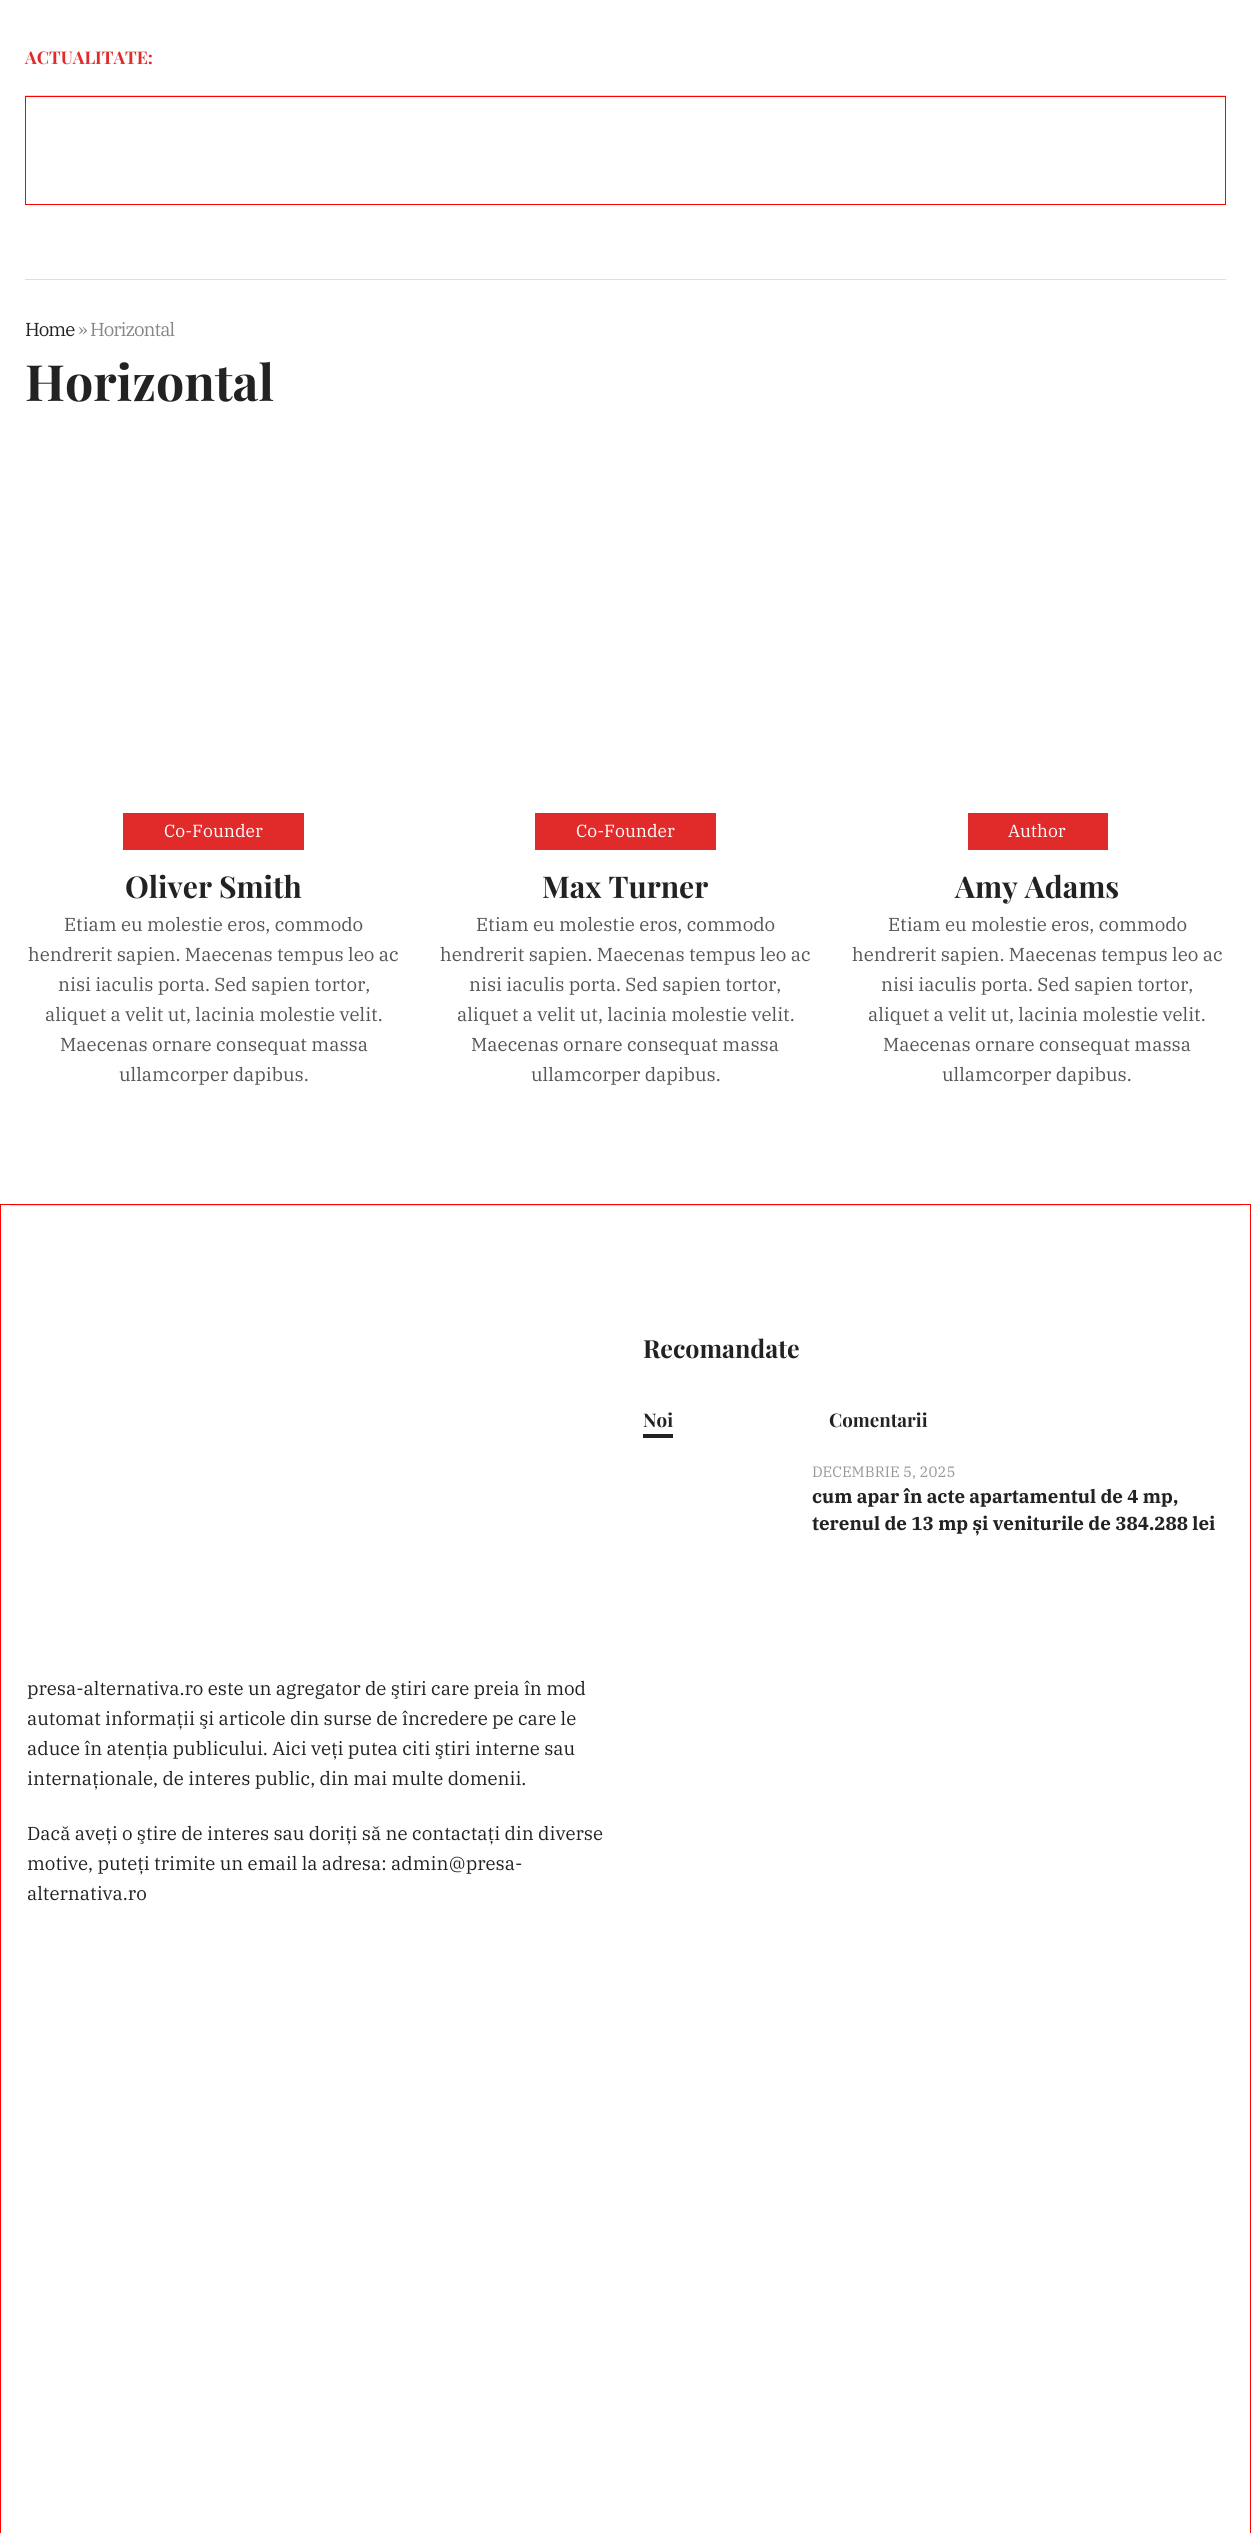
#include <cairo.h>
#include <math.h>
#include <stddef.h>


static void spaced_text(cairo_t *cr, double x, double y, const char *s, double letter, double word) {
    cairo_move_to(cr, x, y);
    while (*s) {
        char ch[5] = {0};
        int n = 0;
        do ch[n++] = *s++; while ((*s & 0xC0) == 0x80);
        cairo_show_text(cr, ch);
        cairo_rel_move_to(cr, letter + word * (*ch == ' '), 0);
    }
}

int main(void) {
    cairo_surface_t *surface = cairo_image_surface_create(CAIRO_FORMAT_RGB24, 1251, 2533);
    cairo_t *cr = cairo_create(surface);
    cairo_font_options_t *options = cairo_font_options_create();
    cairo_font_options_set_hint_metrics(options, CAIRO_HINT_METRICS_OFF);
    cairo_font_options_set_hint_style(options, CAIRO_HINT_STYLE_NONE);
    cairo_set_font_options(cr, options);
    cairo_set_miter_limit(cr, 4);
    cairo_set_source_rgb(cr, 1, 1, 1);
    cairo_paint(cr);
    cairo_set_source_rgb(cr, 0.871, 0.871, 0.871);
    cairo_rectangle(cr, 25, 95, 1201, 1);
    cairo_fill(cr);
    cairo_select_font_face(cr, "Playfair Display", CAIRO_FONT_SLANT_NORMAL, CAIRO_FONT_WEIGHT_BOLD);
    cairo_set_font_size(cr, 17.5);
    cairo_set_source_rgb(cr, 0.882, 0.169, 0.169);
    cairo_move_to(cr, 25, 64);
    cairo_show_text(cr, "ACTUALITATE:");
    cairo_rectangle(cr, 25.5, 96.5, 1200, 108);
    cairo_set_source_rgb(cr, 1, 0, 0);
    cairo_set_line_width(cr, 1);
    cairo_stroke(cr);
    cairo_set_source_rgb(cr, 0.871, 0.871, 0.871);
    cairo_rectangle(cr, 25, 279, 1201, 1);
    cairo_fill(cr);
    cairo_select_font_face(cr, "IBM Plex Serif", CAIRO_FONT_SLANT_NORMAL, CAIRO_FONT_WEIGHT_NORMAL);
    cairo_set_font_size(cr, 18.75);
    cairo_set_source_rgb(cr, 0.133, 0.133, 0.133);
    spaced_text(cr, 25, 336, "Home", -1, 0);
    cairo_set_source_rgb(cr, 0.529, 0.529, 0.529);
    spaced_text(cr, 78, 336, "» Horizontal", -1, 0);
    cairo_select_font_face(cr, "Playfair Display", CAIRO_FONT_SLANT_NORMAL, CAIRO_FONT_WEIGHT_BOLD);
    cairo_set_font_size(cr, 50);
    cairo_set_source_rgb(cr, 0.133, 0.133, 0.133);
    cairo_move_to(cr, 25, 401);
    cairo_show_text(cr, "Horizontal");
    cairo_set_source_rgb(cr, 0.882, 0.169, 0.169);
    cairo_rectangle(cr, 123, 813, 181, 37);
    cairo_fill(cr);
    cairo_select_font_face(cr, "IBM Plex Serif", CAIRO_FONT_SLANT_NORMAL, CAIRO_FONT_WEIGHT_NORMAL);
    cairo_set_font_size(cr, 17.5);
    cairo_set_source_rgb(cr, 1, 1, 1);
    cairo_move_to(cr, 164, 837);
    cairo_show_text(cr, "Co-Founder");
    cairo_select_font_face(cr, "Playfair Display", CAIRO_FONT_SLANT_NORMAL, CAIRO_FONT_WEIGHT_BOLD);
    cairo_set_font_size(cr, 30);
    cairo_set_source_rgb(cr, 0.133, 0.133, 0.133);
    cairo_move_to(cr, 125, 898);
    cairo_show_text(cr, "Oliver Smith");
    cairo_select_font_face(cr, "IBM Plex Serif", CAIRO_FONT_SLANT_NORMAL, CAIRO_FONT_WEIGHT_NORMAL);
    cairo_set_font_size(cr, 18.75);
    cairo_set_source_rgb(cr, 0.333, 0.333, 0.333);
    cairo_move_to(cr, 64, 931);
    cairo_show_text(cr, "Etiam eu molestie eros, commodo");
    cairo_move_to(cr, 28, 961);
    cairo_show_text(cr, "hendrerit sapien. Maecenas tempus leo ac");
    cairo_move_to(cr, 58, 991);
    cairo_show_text(cr, "nisi iaculis porta. Sed sapien tortor,");
    cairo_move_to(cr, 45, 1021);
    cairo_show_text(cr, "aliquet a velit ut, lacinia molestie velit.");
    cairo_move_to(cr, 60, 1051);
    cairo_show_text(cr, "Maecenas ornare consequat massa");
    cairo_move_to(cr, 119, 1081);
    cairo_show_text(cr, "ullamcorper dapibus.");
    cairo_set_source_rgb(cr, 0.882, 0.169, 0.169);
    cairo_rectangle(cr, 535, 813, 181, 37);
    cairo_fill(cr);
    cairo_set_font_size(cr, 17.5);
    cairo_set_source_rgb(cr, 1, 1, 1);
    cairo_move_to(cr, 576, 837);
    cairo_show_text(cr, "Co-Founder");
    cairo_select_font_face(cr, "Playfair Display", CAIRO_FONT_SLANT_NORMAL, CAIRO_FONT_WEIGHT_BOLD);
    cairo_set_font_size(cr, 30);
    cairo_set_source_rgb(cr, 0.133, 0.133, 0.133);
    cairo_move_to(cr, 542, 898);
    cairo_show_text(cr, "Max Turner");
    cairo_select_font_face(cr, "IBM Plex Serif", CAIRO_FONT_SLANT_NORMAL, CAIRO_FONT_WEIGHT_NORMAL);
    cairo_set_font_size(cr, 18.75);
    cairo_set_source_rgb(cr, 0.333, 0.333, 0.333);
    cairo_move_to(cr, 476, 931);
    cairo_show_text(cr, "Etiam eu molestie eros, commodo");
    cairo_move_to(cr, 440, 961);
    cairo_show_text(cr, "hendrerit sapien. Maecenas tempus leo ac");
    cairo_move_to(cr, 469, 991);
    cairo_show_text(cr, "nisi iaculis porta. Sed sapien tortor,");
    cairo_move_to(cr, 457, 1021);
    cairo_show_text(cr, "aliquet a velit ut, lacinia molestie velit.");
    cairo_move_to(cr, 471, 1051);
    cairo_show_text(cr, "Maecenas ornare consequat massa");
    cairo_move_to(cr, 531, 1081);
    cairo_show_text(cr, "ullamcorper dapibus.");
    cairo_set_source_rgb(cr, 0.882, 0.169, 0.169);
    cairo_rectangle(cr, 968, 813, 140, 37);
    cairo_fill(cr);
    cairo_set_font_size(cr, 17.5);
    cairo_set_source_rgb(cr, 1, 1, 1);
    cairo_move_to(cr, 1008, 837);
    cairo_show_text(cr, "Author");
    cairo_select_font_face(cr, "Playfair Display", CAIRO_FONT_SLANT_NORMAL, CAIRO_FONT_WEIGHT_BOLD);
    cairo_set_font_size(cr, 30);
    cairo_set_source_rgb(cr, 0.133, 0.133, 0.133);
    cairo_move_to(cr, 955, 898);
    cairo_show_text(cr, "Amy Adams");
    cairo_select_font_face(cr, "IBM Plex Serif", CAIRO_FONT_SLANT_NORMAL, CAIRO_FONT_WEIGHT_NORMAL);
    cairo_set_font_size(cr, 18.75);
    cairo_set_source_rgb(cr, 0.333, 0.333, 0.333);
    cairo_move_to(cr, 888, 931);
    cairo_show_text(cr, "Etiam eu molestie eros, commodo");
    cairo_move_to(cr, 852, 961);
    cairo_show_text(cr, "hendrerit sapien. Maecenas tempus leo ac");
    cairo_move_to(cr, 881, 991);
    cairo_show_text(cr, "nisi iaculis porta. Sed sapien tortor,");
    cairo_move_to(cr, 868, 1021);
    cairo_show_text(cr, "aliquet a velit ut, lacinia molestie velit.");
    cairo_move_to(cr, 883, 1051);
    cairo_show_text(cr, "Maecenas ornare consequat massa");
    cairo_move_to(cr, 942, 1081);
    cairo_show_text(cr, "ullamcorper dapibus.");
    cairo_rectangle(cr, 0.5, 1204.5, 1250, 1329);
    cairo_set_source_rgb(cr, 1, 0, 0);
    cairo_stroke(cr);
    cairo_set_source_rgb(cr, 0.882, 0.882, 0.882);
    cairo_rectangle(cr, 10, 1205, 1231, 1);
    cairo_fill(cr);
    cairo_select_font_face(cr, "Playfair Display", CAIRO_FONT_SLANT_NORMAL, CAIRO_FONT_WEIGHT_BOLD);
    cairo_set_font_size(cr, 25);
    cairo_set_source_rgb(cr, 0.133, 0.133, 0.133);
    cairo_move_to(cr, 643, 1358);
    cairo_show_text(cr, "Recomandate");
    cairo_rectangle(cr, 643, 1434, 30, 4);
    cairo_fill(cr);
    cairo_set_font_size(cr, 18.75);
    cairo_move_to(cr, 643, 1427);
    cairo_show_text(cr, "Noi");
    cairo_move_to(cr, 829, 1427);
    cairo_show_text(cr, "Comentarii");
    cairo_select_font_face(cr, "IBM Plex Serif", CAIRO_FONT_SLANT_NORMAL, CAIRO_FONT_WEIGHT_NORMAL);
    cairo_set_font_size(cr, 15);
    cairo_set_source_rgb(cr, 0.592, 0.592, 0.592);
    cairo_move_to(cr, 812, 1477);
    cairo_show_text(cr, "DECEMBRIE 5, 2025");
    cairo_select_font_face(cr, "IBM Plex Serif", CAIRO_FONT_SLANT_NORMAL, CAIRO_FONT_WEIGHT_BOLD);
    cairo_set_font_size(cr, 18.75);
    cairo_set_source_rgb(cr, 0.133, 0.133, 0.133);
    cairo_move_to(cr, 812, 1503);
    cairo_show_text(cr, "cum apar în acte apartamentul de 4 mp,");
    cairo_move_to(cr, 812, 1530);
    cairo_show_text(cr, "terenul de 13 mp și veniturile de 384.288 lei");
    cairo_select_font_face(cr, "IBM Plex Serif", CAIRO_FONT_SLANT_NORMAL, CAIRO_FONT_WEIGHT_NORMAL);
    cairo_move_to(cr, 27, 1695);
    cairo_show_text(cr, "presa-alternativa.ro este un agregator de ştiri care preia în mod");
    cairo_move_to(cr, 27, 1725);
    cairo_show_text(cr, "automat informaţii şi articole din surse de încredere pe care le");
    cairo_move_to(cr, 27, 1755);
    cairo_show_text(cr, "aduce în atenţia publicului. Aici veţi putea citi ştiri interne sau");
    cairo_move_to(cr, 27, 1785);
    cairo_show_text(cr, "internaţionale, de interes public, din mai multe domenii.");
    cairo_move_to(cr, 27, 1840);
    cairo_show_text(cr, "Dacă aveţi o ştire de interes sau doriţi să ne contactaţi din diverse");
    cairo_move_to(cr, 27, 1870);
    cairo_show_text(cr, "motive, puteţi trimite un email la adresa: admin@presa-");
    cairo_move_to(cr, 27, 1900);
    cairo_show_text(cr, "alternativa.ro");
    cairo_surface_write_to_png(surface, "page.png");
    cairo_font_options_destroy(options);
    cairo_destroy(cr);
    cairo_surface_destroy(surface);
    return 0;
}
